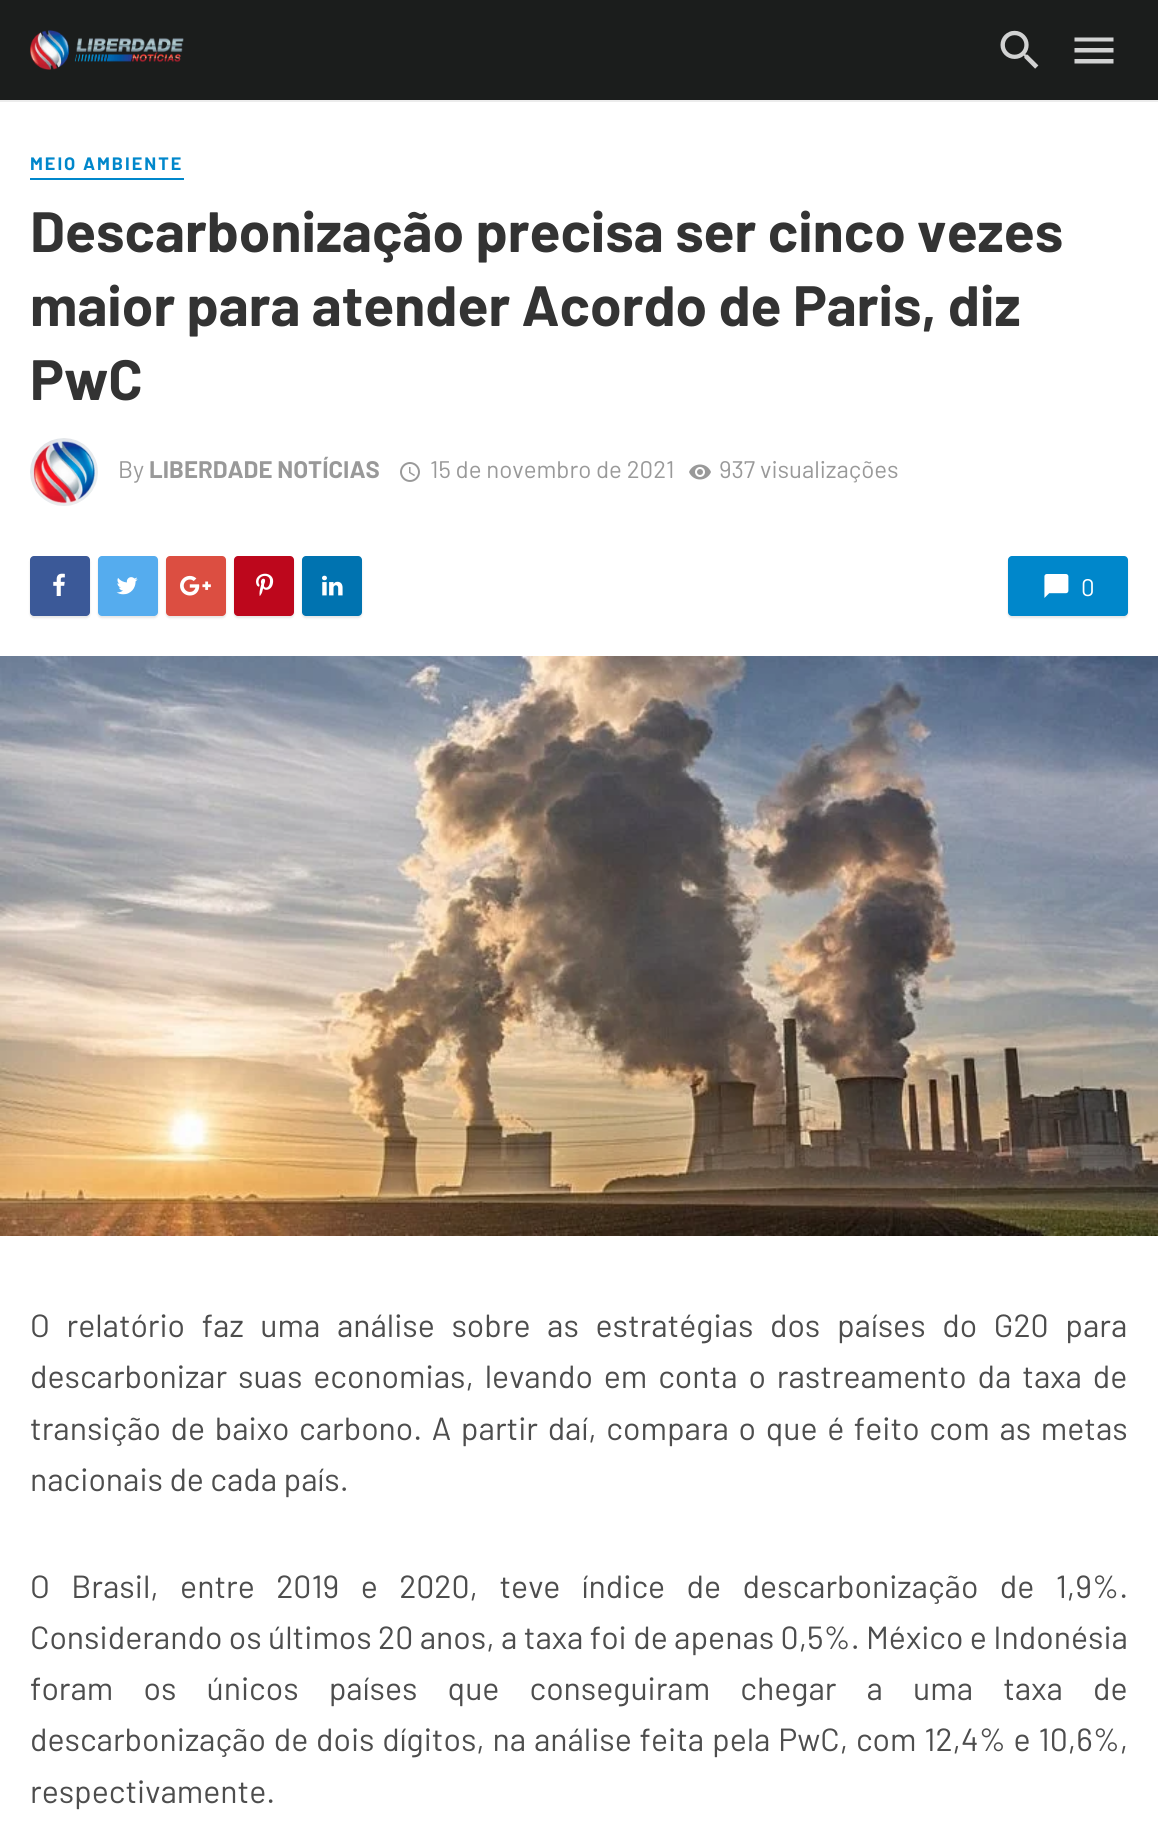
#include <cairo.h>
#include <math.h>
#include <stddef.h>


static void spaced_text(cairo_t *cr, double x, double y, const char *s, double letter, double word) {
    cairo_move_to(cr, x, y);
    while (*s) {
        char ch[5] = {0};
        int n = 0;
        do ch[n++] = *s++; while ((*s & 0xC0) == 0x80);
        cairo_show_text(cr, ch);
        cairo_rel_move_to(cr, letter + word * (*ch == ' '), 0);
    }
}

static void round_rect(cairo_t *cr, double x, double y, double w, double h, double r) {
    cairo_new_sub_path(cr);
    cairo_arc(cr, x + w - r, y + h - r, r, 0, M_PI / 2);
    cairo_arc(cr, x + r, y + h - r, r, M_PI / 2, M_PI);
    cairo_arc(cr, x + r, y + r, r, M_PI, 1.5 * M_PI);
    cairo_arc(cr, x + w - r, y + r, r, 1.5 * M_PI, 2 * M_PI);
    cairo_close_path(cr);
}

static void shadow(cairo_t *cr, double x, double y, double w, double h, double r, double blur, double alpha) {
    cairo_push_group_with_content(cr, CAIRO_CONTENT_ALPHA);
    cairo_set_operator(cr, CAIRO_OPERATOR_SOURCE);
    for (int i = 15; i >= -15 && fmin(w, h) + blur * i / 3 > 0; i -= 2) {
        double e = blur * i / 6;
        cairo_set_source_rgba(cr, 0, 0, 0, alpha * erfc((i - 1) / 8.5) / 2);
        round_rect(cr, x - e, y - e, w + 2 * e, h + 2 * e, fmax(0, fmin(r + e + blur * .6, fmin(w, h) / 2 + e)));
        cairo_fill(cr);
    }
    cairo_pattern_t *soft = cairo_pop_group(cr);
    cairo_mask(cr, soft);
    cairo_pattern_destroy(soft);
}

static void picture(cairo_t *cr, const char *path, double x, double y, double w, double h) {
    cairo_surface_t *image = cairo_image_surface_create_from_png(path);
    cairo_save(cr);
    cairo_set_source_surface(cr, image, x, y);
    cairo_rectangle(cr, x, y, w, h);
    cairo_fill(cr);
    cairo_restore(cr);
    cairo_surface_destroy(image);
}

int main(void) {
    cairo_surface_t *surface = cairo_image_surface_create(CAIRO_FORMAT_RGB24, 1158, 1822);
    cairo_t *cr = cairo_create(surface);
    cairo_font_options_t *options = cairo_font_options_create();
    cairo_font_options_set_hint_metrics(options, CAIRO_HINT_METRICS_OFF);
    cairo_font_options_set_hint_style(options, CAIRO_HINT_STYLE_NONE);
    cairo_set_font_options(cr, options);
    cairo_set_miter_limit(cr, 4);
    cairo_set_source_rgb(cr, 1, 1, 1);
    cairo_paint(cr);
    cairo_set_source_rgb(cr, 0.961, 0.961, 0.961);
    cairo_rectangle(cr, 0, 100, 1158, 2);
    cairo_fill(cr);
    cairo_set_source_rgba(cr, 0, 0, 0, 0.04);
    cairo_rectangle(cr, 0, 100, 1158, 2);
    cairo_fill(cr);
    cairo_set_source_rgb(cr, 0.106, 0.114, 0.11);
    cairo_rectangle(cr, 0, 0, 1158, 100);
    cairo_fill(cr);
    picture(cr, "img1.png", 30, 30, 154, 40);
    picture(cr, "img2.png", 1000, 30, 39, 39);
    cairo_set_source_rgb(cr, 0.82, 0.824, 0.824);
    cairo_new_path(cr);
    cairo_move_to(cr, 1074.5, 37.5);
    cairo_line_to(cr, 1113.5, 37.5);
    cairo_line_to(cr, 1113.5, 41.5);
    cairo_line_to(cr, 1074.5, 41.5);
    cairo_close_path(cr);
    cairo_move_to(cr, 1074.5, 52.5);
    cairo_line_to(cr, 1074.5, 48);
    cairo_line_to(cr, 1113.5, 48);
    cairo_line_to(cr, 1113.5, 52.5);
    cairo_close_path(cr);
    cairo_move_to(cr, 1074.5, 63.5);
    cairo_line_to(cr, 1074.5, 59);
    cairo_line_to(cr, 1113.5, 59);
    cairo_line_to(cr, 1113.5, 63.5);
    cairo_close_path(cr);
    cairo_fill(cr);
    cairo_set_source_rgb(cr, 0, 0.529, 0.796);
    cairo_rectangle(cr, 30, 178, 154, 2);
    cairo_fill(cr);
    cairo_select_font_face(cr, "Barlow", CAIRO_FONT_SLANT_NORMAL, CAIRO_FONT_WEIGHT_BOLD);
    cairo_set_font_size(cr, 18);
    spaced_text(cr, 30, 170, "MEIO AMBIENTE", 2, 0);
    cairo_set_font_size(cr, 56.75);
    cairo_set_source_rgb(cr, 0.2, 0.2, 0.2);
    cairo_move_to(cr, 30, 252);
    cairo_show_text(cr, "Descarbonização precisa ser cinco vezes");
    cairo_move_to(cr, 30, 326);
    cairo_show_text(cr, "maior para atender Acordo de Paris, diz");
    cairo_move_to(cr, 30, 400);
    cairo_show_text(cr, "PwC");
    picture(cr, "img3.png", 30, 438, 68, 68);
    cairo_select_font_face(cr, "Barlow", CAIRO_FONT_SLANT_NORMAL, CAIRO_FONT_WEIGHT_NORMAL);
    cairo_set_font_size(cr, 24);
    cairo_set_source_rgb(cr, 0.6, 0.6, 0.6);
    cairo_move_to(cr, 118, 478);
    cairo_show_text(cr, "By");
    cairo_select_font_face(cr, "Barlow", CAIRO_FONT_SLANT_NORMAL, CAIRO_FONT_WEIGHT_BOLD);
    cairo_move_to(cr, 149, 478);
    cairo_show_text(cr, "LIBERDADE NOTÍCIAS");
    picture(cr, "img4.png", 400, 462, 20, 20);
    cairo_select_font_face(cr, "Barlow", CAIRO_FONT_SLANT_NORMAL, CAIRO_FONT_WEIGHT_NORMAL);
    cairo_move_to(cr, 430, 478);
    cairo_show_text(cr, "15 de novembro de 2021");
    picture(cr, "img5.png", 689, 464, 22, 16);
    cairo_move_to(cr, 719, 478);
    cairo_show_text(cr, "937 visualizações");
    cairo_set_source_rgb(cr, 0, 0, 0);
    shadow(cr, 30, 558, 60, 60, 4, 1, 0.1);
    cairo_set_source_rgb(cr, 0.231, 0.349, 0.596);
    round_rect(cr, 30, 556, 60, 60, 4);
    cairo_fill(cr);
    picture(cr, "img6.png", 53, 573, 12, 23);
    cairo_set_source_rgb(cr, 0, 0, 0);
    shadow(cr, 98, 558, 60, 60, 4, 1, 0.1);
    cairo_set_source_rgb(cr, 0.333, 0.675, 0.933);
    round_rect(cr, 98, 556, 60, 60, 4);
    cairo_fill(cr);
    picture(cr, "img7.png", 116, 577, 22, 18);
    cairo_set_source_rgb(cr, 0, 0, 0);
    shadow(cr, 166, 558, 60, 60, 4, 1, 0.1);
    cairo_set_source_rgb(cr, 0.863, 0.306, 0.255);
    round_rect(cr, 166, 556, 60, 60, 4);
    cairo_fill(cr);
    picture(cr, "img8.png", 180, 575, 31, 21);
    cairo_set_source_rgb(cr, 0, 0, 0);
    shadow(cr, 234, 558, 60, 60, 4, 1, 0.1);
    cairo_set_source_rgb(cr, 0.741, 0.031, 0.11);
    round_rect(cr, 234, 556, 60, 60, 4);
    cairo_fill(cr);
    picture(cr, "img9.png", 256, 573, 18, 23);
    cairo_set_source_rgb(cr, 0, 0, 0);
    shadow(cr, 302, 558, 60, 60, 4, 1, 0.1);
    cairo_set_source_rgb(cr, 0, 0.451, 0.69);
    round_rect(cr, 302, 556, 60, 60, 4);
    cairo_fill(cr);
    picture(cr, "img10.png", 322, 575, 21, 21);
    cairo_set_source_rgb(cr, 0, 0, 0);
    shadow(cr, 1008, 558, 120, 60, 4, 1, 0.1);
    cairo_set_source_rgb(cr, 0, 0.529, 0.796);
    round_rect(cr, 1008, 556, 120, 60, 4);
    cairo_fill(cr);
    picture(cr, "img11.png", 1044, 574, 25, 24);
    cairo_set_source_rgb(cr, 1, 1, 1);
    cairo_move_to(cr, 1081, 596);
    cairo_show_text(cr, "0");
    picture(cr, "img12.png", 0, 656, 1158, 580);
    cairo_set_font_size(cr, 32);
    cairo_set_source_rgb(cr, 0.302, 0.302, 0.302);
    spaced_text(cr, 30, 1337, "O relatório faz uma análise sobre as estratégias dos países do G20 para", 0, 10.25);
    spaced_text(cr, 30, 1388, "descarbonizar suas economias, levando em conta o rastreamento da taxa de", 0, 4.5);
    spaced_text(cr, 30, 1440, "transição de baixo carbono. A partir daí, compara o que é feito com as metas", 0, 3.25);
    cairo_move_to(cr, 30, 1491);
    cairo_show_text(cr, "nacionais de cada país.");
    spaced_text(cr, 30, 1598, "O Brasil, entre 2019 e 2020, teve índice de descarbonização de 1,9%.", 0, 15);
    cairo_move_to(cr, 30, 1649);
    cairo_show_text(cr, "Considerando os últimos 20 anos, a taxa foi de apenas 0,5%. México e Indonésia");
    spaced_text(cr, 30, 1700, "foram os únicos países que conseguiram chegar a uma taxa de", 0, 23.75);
    spaced_text(cr, 30, 1751, "descarbonização de dois dígitos, na análise feita pela PwC, com 12,4% e 10,6%,", 0, 1.4);
    cairo_move_to(cr, 30, 1803);
    cairo_show_text(cr, "respectivamente.");
    cairo_surface_write_to_png(surface, "page.png");
    cairo_font_options_destroy(options);
    cairo_destroy(cr);
    cairo_surface_destroy(surface);
    return 0;
}
